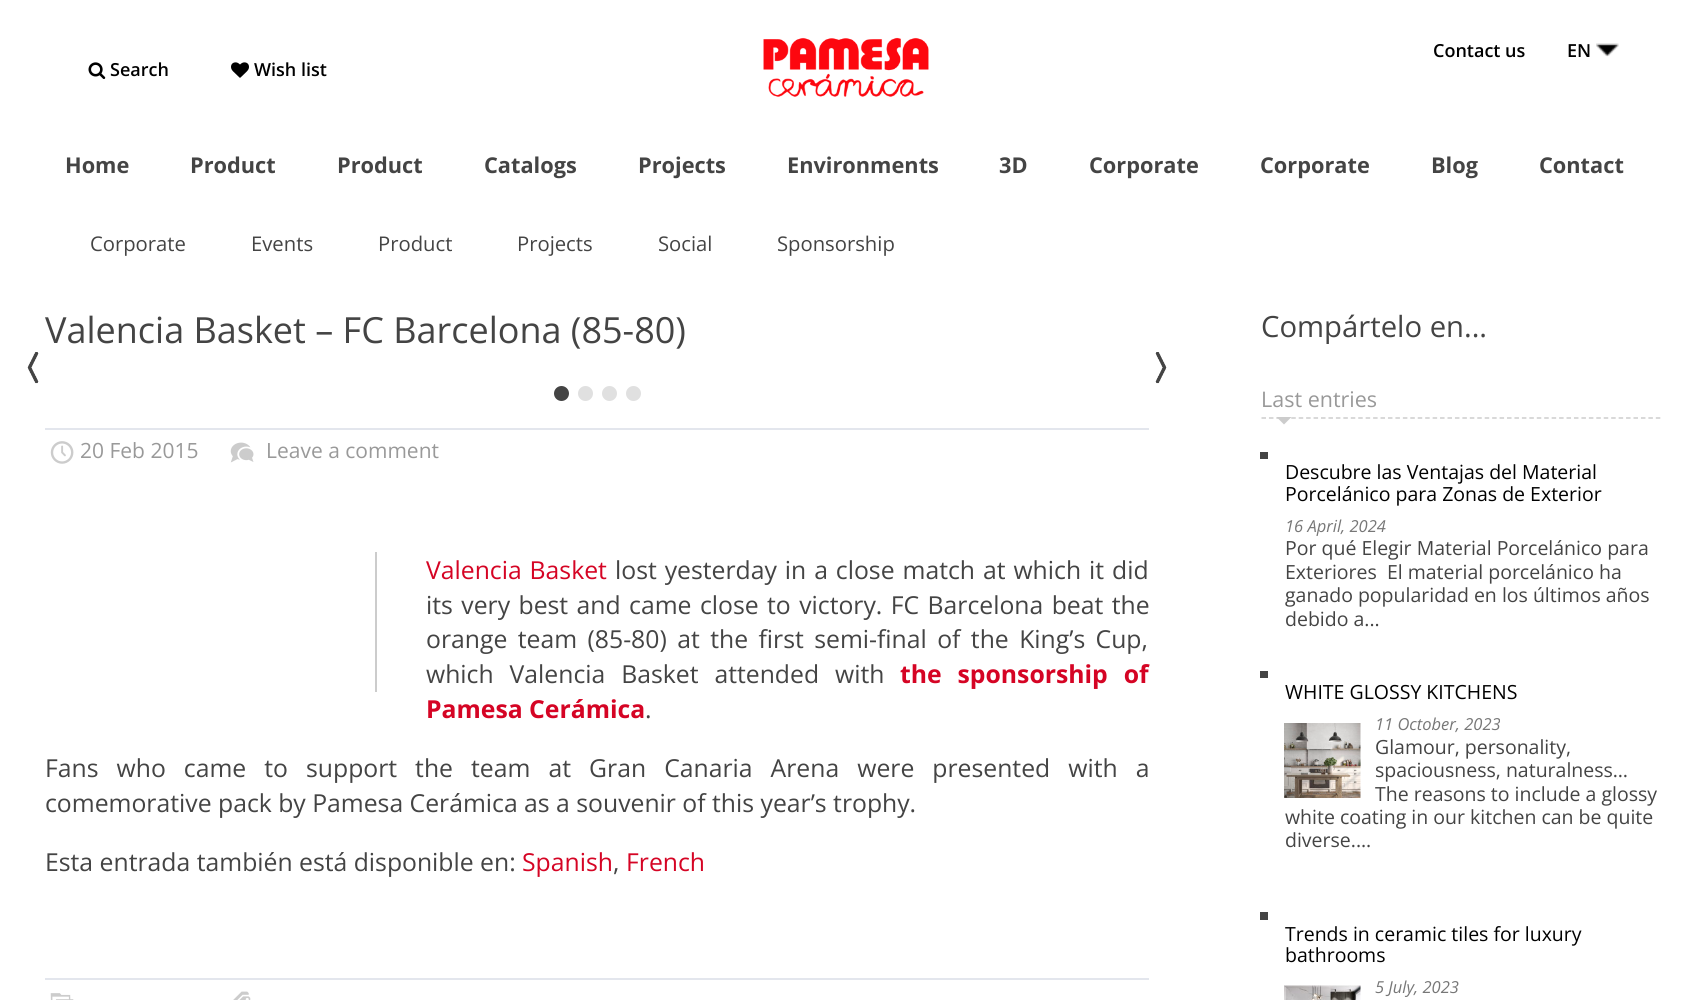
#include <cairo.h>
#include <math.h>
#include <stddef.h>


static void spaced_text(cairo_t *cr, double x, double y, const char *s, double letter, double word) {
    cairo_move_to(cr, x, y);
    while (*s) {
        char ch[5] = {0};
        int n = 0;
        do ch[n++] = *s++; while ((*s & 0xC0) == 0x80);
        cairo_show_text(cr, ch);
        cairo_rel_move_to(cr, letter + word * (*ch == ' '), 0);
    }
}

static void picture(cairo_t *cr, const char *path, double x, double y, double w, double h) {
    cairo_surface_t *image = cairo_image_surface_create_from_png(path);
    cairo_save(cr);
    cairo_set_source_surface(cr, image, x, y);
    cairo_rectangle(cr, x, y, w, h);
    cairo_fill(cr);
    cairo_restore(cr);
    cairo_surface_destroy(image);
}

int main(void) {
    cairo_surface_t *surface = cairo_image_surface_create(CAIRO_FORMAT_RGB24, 1705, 1000);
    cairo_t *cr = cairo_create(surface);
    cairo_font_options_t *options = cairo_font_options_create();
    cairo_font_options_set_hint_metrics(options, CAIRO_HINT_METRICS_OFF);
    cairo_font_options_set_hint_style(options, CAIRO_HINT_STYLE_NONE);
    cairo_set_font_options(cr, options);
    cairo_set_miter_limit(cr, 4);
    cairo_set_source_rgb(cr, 1, 1, 1);
    cairo_paint(cr);
    picture(cr, "img1.png", 763, 37, 166, 60);
    cairo_select_font_face(cr, "Open Sans SemiBold", CAIRO_FONT_SLANT_NORMAL, CAIRO_FONT_WEIGHT_NORMAL);
    cairo_set_font_size(cr, 18);
    cairo_set_source_rgb(cr, 0, 0, 0);
    cairo_move_to(cr, 1433, 57);
    cairo_show_text(cr, "Contact us");
    cairo_move_to(cr, 1567, 57);
    cairo_show_text(cr, "EN");
    picture(cr, "img2.png", 1596, 43, 23, 14);
    picture(cr, "img3.png", 88, 62, 18, 17);
    cairo_move_to(cr, 110, 76);
    cairo_show_text(cr, "Search");
    picture(cr, "img4.png", 231, 62, 18, 16);
    cairo_move_to(cr, 254, 76);
    cairo_show_text(cr, "Wish list");
    cairo_select_font_face(cr, "Open Sans", CAIRO_FONT_SLANT_NORMAL, CAIRO_FONT_WEIGHT_BOLD);
    cairo_set_font_size(cr, 21.75);
    cairo_set_source_rgb(cr, 0.267, 0.267, 0.267);
    cairo_move_to(cr, 65, 173);
    cairo_show_text(cr, "Home");
    cairo_move_to(cr, 190, 173);
    cairo_show_text(cr, "Product");
    cairo_move_to(cr, 337, 173);
    cairo_show_text(cr, "Product");
    cairo_move_to(cr, 484, 173);
    cairo_show_text(cr, "Catalogs");
    cairo_move_to(cr, 638, 173);
    cairo_show_text(cr, "Projects");
    cairo_move_to(cr, 787, 173);
    cairo_show_text(cr, "Environments");
    cairo_move_to(cr, 999, 173);
    cairo_show_text(cr, "3D");
    cairo_move_to(cr, 1089, 173);
    cairo_show_text(cr, "Corporate");
    cairo_move_to(cr, 1260, 173);
    cairo_show_text(cr, "Corporate");
    cairo_move_to(cr, 1431, 173);
    cairo_show_text(cr, "Blog");
    cairo_move_to(cr, 1539, 173);
    cairo_show_text(cr, "Contact");
    cairo_select_font_face(cr, "Open Sans", CAIRO_FONT_SLANT_NORMAL, CAIRO_FONT_WEIGHT_NORMAL);
    cairo_set_font_size(cr, 20.25);
    cairo_move_to(cr, 90, 251);
    cairo_show_text(cr, "Corporate");
    cairo_move_to(cr, 251, 251);
    cairo_show_text(cr, "Events");
    cairo_move_to(cr, 378, 251);
    cairo_show_text(cr, "Product");
    cairo_move_to(cr, 517, 251);
    cairo_show_text(cr, "Projects");
    cairo_move_to(cr, 658, 251);
    cairo_show_text(cr, "Social");
    cairo_move_to(cr, 777, 251);
    cairo_show_text(cr, "Sponsorship");
    cairo_set_font_size(cr, 36);
    cairo_move_to(cr, 45, 343);
    cairo_show_text(cr, "Valencia Basket – FC Barcelona (85-80)");
    picture(cr, "img5.png", 27, 352, 12, 32);
    picture(cr, "img6.png", 1155, 352, 12, 32);
    cairo_arc(cr, 561.5, 393.5, 7.5, 0, 2 * M_PI);
    cairo_fill(cr);
    cairo_set_source_rgb(cr, 0.878, 0.878, 0.878);
    cairo_arc(cr, 585.5, 393.5, 7.5, 0, 2 * M_PI);
    cairo_fill(cr);
    cairo_arc(cr, 609.5, 393.5, 7.5, 0, 2 * M_PI);
    cairo_fill(cr);
    cairo_arc(cr, 633.5, 393.5, 7.5, 0, 2 * M_PI);
    cairo_fill(cr);
    cairo_set_source_rgb(cr, 0.89, 0.902, 0.929);
    cairo_rectangle(cr, 45, 428, 1104, 2);
    cairo_fill(cr);
    picture(cr, "img7.png", 50, 441, 24, 23);
    cairo_set_font_size(cr, 21);
    cairo_set_source_rgb(cr, 0.6, 0.6, 0.6);
    cairo_move_to(cr, 80, 458);
    cairo_show_text(cr, "20 Feb 2015");
    picture(cr, "img8.png", 230, 442, 24, 21);
    cairo_move_to(cr, 266, 458);
    cairo_show_text(cr, "Leave a comment");
    cairo_set_source_rgb(cr, 0.8, 0.8, 0.8);
    cairo_rectangle(cr, 375, 552, 2, 140);
    cairo_fill(cr);
    cairo_set_font_size(cr, 24.75);
    cairo_set_source_rgb(cr, 0.835, 0.016, 0.141);
    spaced_text(cr, 426, 579, "Valencia Basket", 0, 1.5);
    cairo_set_source_rgb(cr, 0.267, 0.267, 0.267);
    spaced_text(cr, 615, 579, "lost yesterday in a close match at which it did", 0, 1.5);
    spaced_text(cr, 426, 614, "its very best and came close to victory. FC Barcelona beat the", 0, 2);
    spaced_text(cr, 426, 648, "orange team (85-80) at the first semi-final of the King’s Cup,", 0, 4);
    spaced_text(cr, 426, 683, "which Valencia Basket attended with", 0, 9.5);
    cairo_select_font_face(cr, "Open Sans", CAIRO_FONT_SLANT_NORMAL, CAIRO_FONT_WEIGHT_BOLD);
    cairo_set_source_rgb(cr, 0.835, 0.016, 0.141);
    spaced_text(cr, 900, 683, "the sponsorship of", 0, 9.5);
    cairo_move_to(cr, 426, 718);
    cairo_show_text(cr, "Pamesa Cerámica");
    cairo_select_font_face(cr, "Open Sans", CAIRO_FONT_SLANT_NORMAL, CAIRO_FONT_WEIGHT_NORMAL);
    cairo_set_source_rgb(cr, 0.267, 0.267, 0.267);
    cairo_move_to(cr, 645, 718);
    cairo_show_text(cr, ".");
    spaced_text(cr, 45, 777, "Fans who came to support the team at Gran Canaria Arena were presented with a", 0, 11.6);
    cairo_move_to(cr, 45, 812);
    cairo_show_text(cr, "comemorative pack by Pamesa Cerámica as a souvenir of this year’s trophy.");
    cairo_move_to(cr, 45, 871);
    cairo_show_text(cr, "Esta entrada también está disponible en:");
    cairo_set_source_rgb(cr, 0.835, 0.016, 0.141);
    cairo_move_to(cr, 522, 871);
    cairo_show_text(cr, "Spanish");
    cairo_set_source_rgb(cr, 0.267, 0.267, 0.267);
    cairo_move_to(cr, 613, 871);
    cairo_show_text(cr, ",");
    cairo_set_source_rgb(cr, 0.835, 0.016, 0.141);
    cairo_move_to(cr, 626, 871);
    cairo_show_text(cr, "French");
    cairo_set_source_rgb(cr, 0.89, 0.902, 0.929);
    cairo_rectangle(cr, 45, 978, 1104, 2);
    cairo_fill(cr);
    picture(cr, "img9.png", 50, 993, 24, 7);
    picture(cr, "img10.png", 233, 991, 18, 9);
    cairo_set_font_size(cr, 29.25);
    cairo_set_source_rgb(cr, 0.267, 0.267, 0.267);
    cairo_move_to(cr, 1261, 337);
    cairo_show_text(cr, "Compártelo en...");
    cairo_new_path(cr);
    cairo_move_to(cr, 1261.5, 418);
    cairo_line_to(cr, 1660.5, 418);
    cairo_set_source_rgb(cr, 0.8, 0.8, 0.8);
    cairo_set_line_width(cr, 1.5);
    cairo_set_dash(cr, (double[]){4.5, 2.94}, 2, 0);
    cairo_stroke(cr);
    cairo_set_font_size(cr, 21.5);
    cairo_set_source_rgb(cr, 0.6, 0.6, 0.6);
    cairo_move_to(cr, 1261, 407);
    cairo_show_text(cr, "Last entries");
    cairo_set_source_rgb(cr, 0.8, 0.8, 0.8);
    cairo_new_path(cr);
    cairo_move_to(cr, 1276.5, 417);
    cairo_line_to(cr, 1291.5, 417);
    cairo_line_to(cr, 1284, 424.5);
    cairo_close_path(cr);
    cairo_fill(cr);
    cairo_set_source_rgb(cr, 0.267, 0.267, 0.267);
    cairo_rectangle(cr, 1260, 452, 8, 7);
    cairo_fill(cr);
    cairo_set_font_size(cr, 19.5);
    cairo_set_source_rgb(cr, 0, 0, 0);
    cairo_move_to(cr, 1285, 479);
    cairo_show_text(cr, "Descubre las Ventajas del Material");
    cairo_move_to(cr, 1285, 501);
    cairo_show_text(cr, "Porcelánico para Zonas de Exterior");
    cairo_select_font_face(cr, "Open Sans", CAIRO_FONT_SLANT_ITALIC, CAIRO_FONT_WEIGHT_NORMAL);
    cairo_set_font_size(cr, 16.5);
    cairo_set_source_rgb(cr, 0.467, 0.467, 0.467);
    cairo_move_to(cr, 1285, 532);
    cairo_show_text(cr, "16 April, 2024");
    cairo_select_font_face(cr, "Open Sans", CAIRO_FONT_SLANT_NORMAL, CAIRO_FONT_WEIGHT_NORMAL);
    cairo_set_font_size(cr, 19.5);
    cairo_set_source_rgb(cr, 0.267, 0.267, 0.267);
    cairo_move_to(cr, 1285, 555);
    cairo_show_text(cr, "Por qué Elegir Material Porcelánico para");
    cairo_move_to(cr, 1285, 579);
    cairo_show_text(cr, "Exteriores  El material porcelánico ha");
    cairo_move_to(cr, 1285, 602);
    cairo_show_text(cr, "ganado popularidad en los últimos años");
    cairo_move_to(cr, 1285, 626);
    cairo_show_text(cr, "debido a...");
    cairo_rectangle(cr, 1260, 671, 8, 7);
    cairo_fill(cr);
    cairo_set_source_rgb(cr, 0, 0, 0);
    cairo_move_to(cr, 1285, 699);
    cairo_show_text(cr, "WHITE GLOSSY KITCHENS");
    picture(cr, "img11.png", 1284, 723, 77, 75);
    cairo_select_font_face(cr, "Open Sans", CAIRO_FONT_SLANT_ITALIC, CAIRO_FONT_WEIGHT_NORMAL);
    cairo_set_font_size(cr, 16.5);
    cairo_set_source_rgb(cr, 0.467, 0.467, 0.467);
    cairo_move_to(cr, 1375, 730);
    cairo_show_text(cr, "11 October, 2023");
    cairo_select_font_face(cr, "Open Sans", CAIRO_FONT_SLANT_NORMAL, CAIRO_FONT_WEIGHT_NORMAL);
    cairo_set_font_size(cr, 19.5);
    cairo_set_source_rgb(cr, 0.267, 0.267, 0.267);
    cairo_move_to(cr, 1375, 754);
    cairo_show_text(cr, "Glamour, personality,");
    cairo_move_to(cr, 1375, 777);
    cairo_show_text(cr, "spaciousness, naturalness…");
    cairo_move_to(cr, 1375, 801);
    cairo_show_text(cr, "The reasons to include a glossy");
    cairo_move_to(cr, 1285, 824);
    cairo_show_text(cr, "white coating in our kitchen can be quite");
    cairo_move_to(cr, 1285, 847);
    cairo_show_text(cr, "diverse....");
    cairo_rectangle(cr, 1260, 912, 8, 8);
    cairo_fill(cr);
    cairo_set_source_rgb(cr, 0, 0, 0);
    cairo_move_to(cr, 1285, 941);
    cairo_show_text(cr, "Trends in ceramic tiles for luxury");
    cairo_move_to(cr, 1285, 962);
    cairo_show_text(cr, "bathrooms");
    picture(cr, "img12.png", 1284, 985, 77, 15);
    cairo_select_font_face(cr, "Open Sans", CAIRO_FONT_SLANT_ITALIC, CAIRO_FONT_WEIGHT_NORMAL);
    cairo_set_font_size(cr, 16.5);
    cairo_set_source_rgb(cr, 0.467, 0.467, 0.467);
    cairo_move_to(cr, 1375, 993);
    cairo_show_text(cr, "5 July, 2023");
    cairo_surface_write_to_png(surface, "page.png");
    cairo_font_options_destroy(options);
    cairo_destroy(cr);
    cairo_surface_destroy(surface);
    return 0;
}
